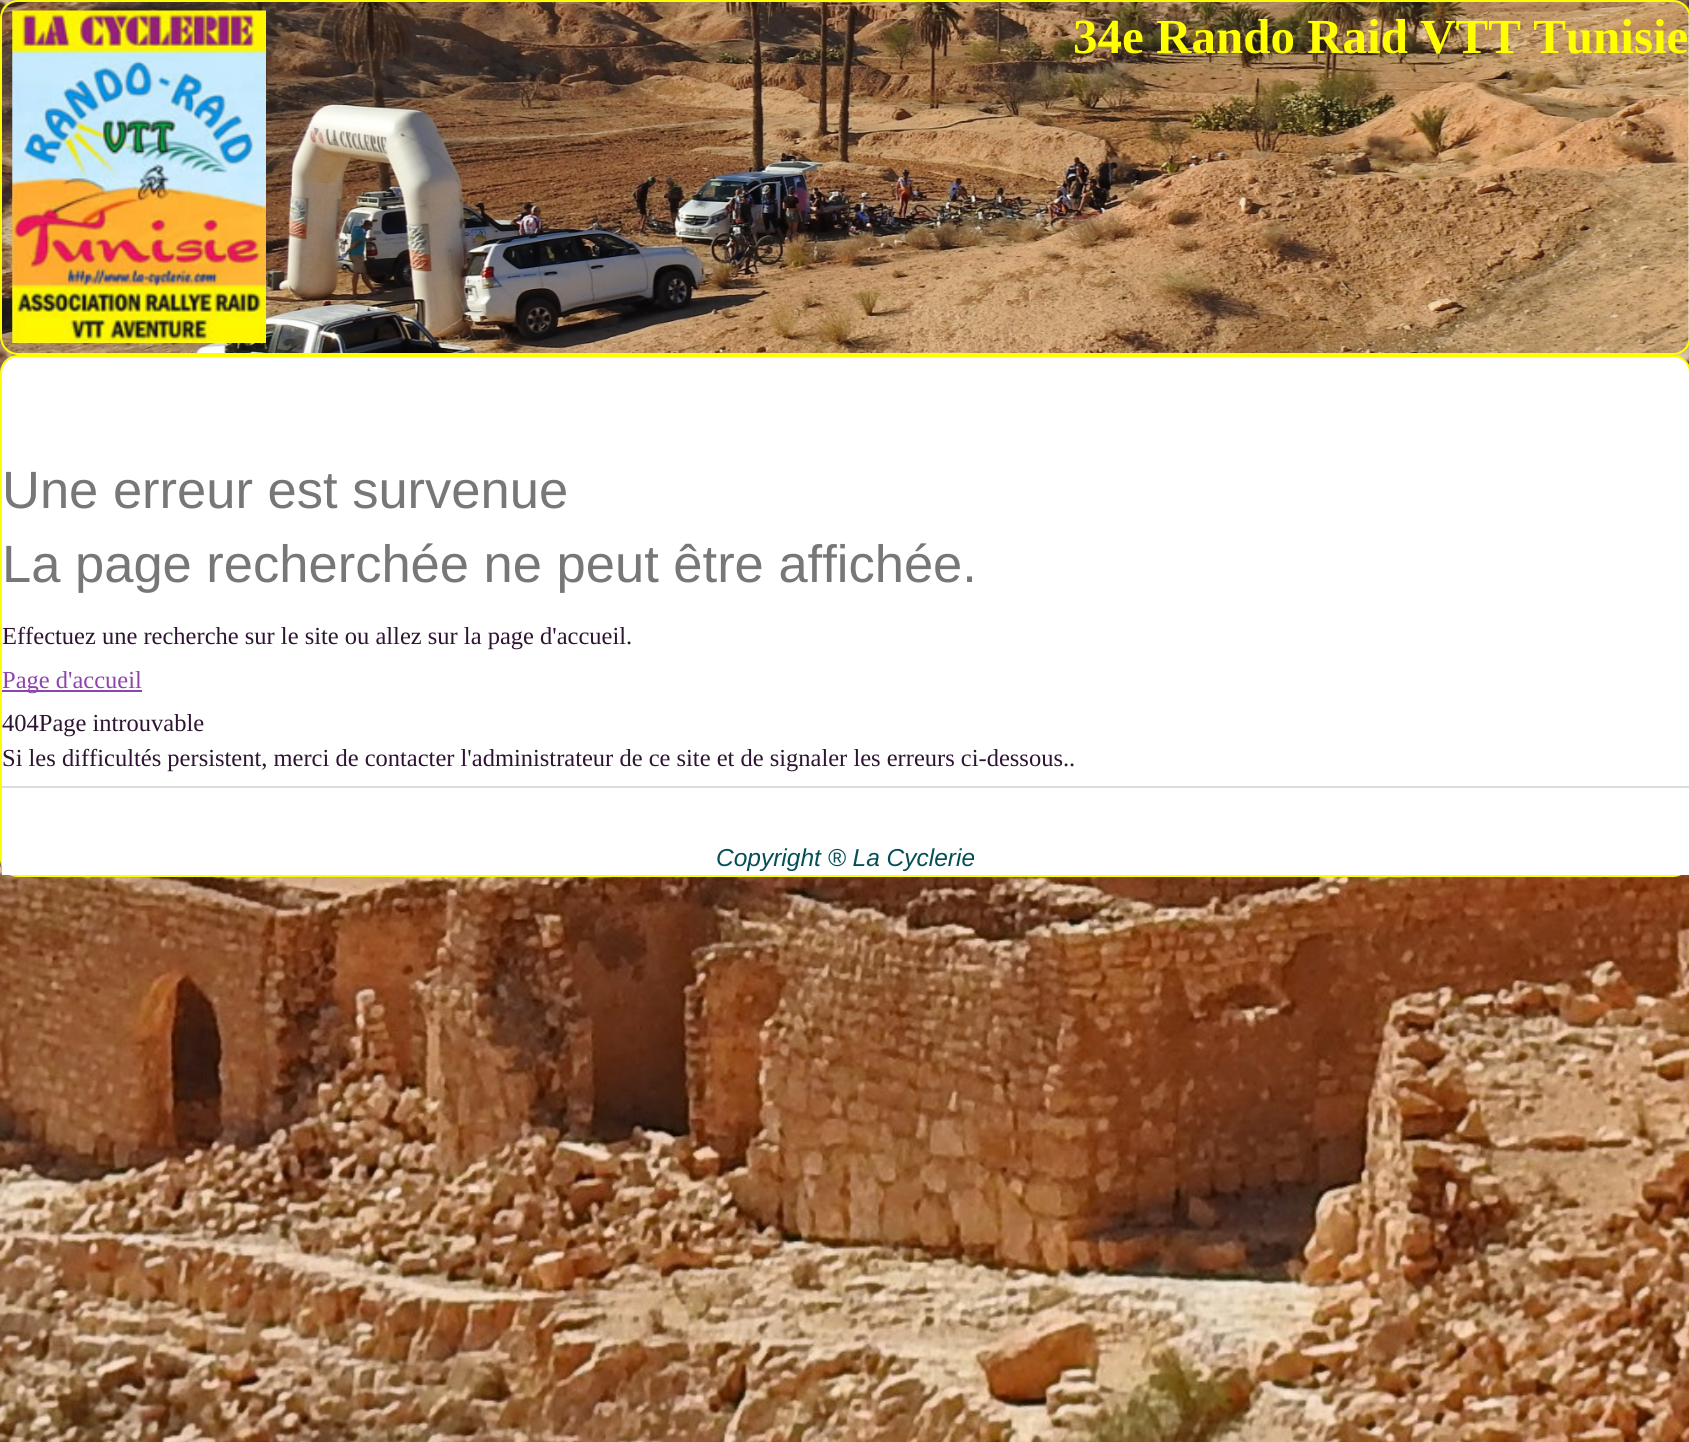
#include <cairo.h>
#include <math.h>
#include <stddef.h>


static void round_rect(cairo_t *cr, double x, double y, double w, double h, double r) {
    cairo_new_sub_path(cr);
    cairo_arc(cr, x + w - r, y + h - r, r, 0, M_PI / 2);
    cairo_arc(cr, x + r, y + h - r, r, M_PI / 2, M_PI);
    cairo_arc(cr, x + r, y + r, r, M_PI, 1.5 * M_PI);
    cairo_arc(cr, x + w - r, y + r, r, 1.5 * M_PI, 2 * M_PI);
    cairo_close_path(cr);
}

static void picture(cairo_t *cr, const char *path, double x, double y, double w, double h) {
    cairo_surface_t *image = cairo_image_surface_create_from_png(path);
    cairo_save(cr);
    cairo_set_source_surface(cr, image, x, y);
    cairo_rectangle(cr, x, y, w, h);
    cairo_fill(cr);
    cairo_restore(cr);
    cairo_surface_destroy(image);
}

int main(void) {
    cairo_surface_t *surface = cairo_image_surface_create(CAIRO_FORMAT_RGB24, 1689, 1442);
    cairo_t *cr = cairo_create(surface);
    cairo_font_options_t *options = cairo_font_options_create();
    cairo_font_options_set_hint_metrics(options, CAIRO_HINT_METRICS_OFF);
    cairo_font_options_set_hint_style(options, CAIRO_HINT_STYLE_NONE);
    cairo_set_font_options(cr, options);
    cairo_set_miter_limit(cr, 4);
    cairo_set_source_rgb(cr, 1, 1, 1);
    cairo_paint(cr);
    picture(cr, "img1.png", 0, 0, 1689, 1442);
    cairo_set_source_rgb(cr, 1, 1, 1);
    round_rect(cr, 2, 2, 1687, 352, 16);
    cairo_fill(cr);
    picture(cr, "img2.png", 2, 2, 1687, 351);
    round_rect(cr, 1, 1, 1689, 353, 17);
    cairo_set_source_rgb(cr, 1, 1, 0);
    cairo_stroke(cr);
    picture(cr, "img3.png", 12, 10, 254, 333);
    cairo_select_font_face(cr, "Liberation Serif", CAIRO_FONT_SLANT_NORMAL, CAIRO_FONT_WEIGHT_BOLD);
    cairo_set_font_size(cr, 49);
    cairo_move_to(cr, 1073, 53);
    cairo_show_text(cr, "34e Rando Raid VTT Tunisie");
    cairo_set_source_rgb(cr, 1, 1, 1);
    round_rect(cr, 1, 356, 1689, 520, 17);
    cairo_fill_preserve(cr);
    cairo_set_source_rgb(cr, 1, 1, 0);
    cairo_stroke(cr);
    cairo_select_font_face(cr, "Liberation Sans", CAIRO_FONT_SLANT_NORMAL, CAIRO_FONT_WEIGHT_NORMAL);
    cairo_set_font_size(cr, 52.5);
    cairo_set_source_rgb(cr, 0.467, 0.467, 0.467);
    cairo_move_to(cr, 2, 508);
    cairo_show_text(cr, "Une erreur est survenue");
    cairo_move_to(cr, 2, 582);
    cairo_show_text(cr, "La page recherchée ne peut être affichée.");
    cairo_select_font_face(cr, "Liberation Serif", CAIRO_FONT_SLANT_NORMAL, CAIRO_FONT_WEIGHT_NORMAL);
    cairo_set_font_size(cr, 24.5);
    cairo_set_source_rgb(cr, 0.18, 0.082, 0.196);
    cairo_move_to(cr, 2, 644);
    cairo_show_text(cr, "Effectuez une recherche sur le site ou allez sur la page d'accueil.");
    cairo_set_source_rgb(cr, 0.557, 0.267, 0.678);
    cairo_rectangle(cr, 2, 690, 140, 2);
    cairo_fill(cr);
    cairo_move_to(cr, 2, 688);
    cairo_show_text(cr, "Page d'accueil");
    cairo_set_source_rgb(cr, 0.18, 0.082, 0.196);
    cairo_move_to(cr, 2, 731);
    cairo_show_text(cr, "404Page introuvable");
    cairo_move_to(cr, 2, 766);
    cairo_show_text(cr, "Si les difficultés persistent, merci de contacter l'administrateur de ce site et de signaler les erreurs ci-dessous..");
    cairo_set_source_rgb(cr, 1, 1, 1);
    cairo_rectangle(cr, 2, 859, 1687, 16);
    cairo_fill(cr);
    cairo_set_source_rgb(cr, 0.863, 0.863, 0.863);
    cairo_rectangle(cr, 2, 786, 1687, 2);
    cairo_fill(cr);
    cairo_select_font_face(cr, "Liberation Sans", CAIRO_FONT_SLANT_ITALIC, CAIRO_FONT_WEIGHT_NORMAL);
    cairo_set_source_rgb(cr, 0.016, 0.31, 0.333);
    cairo_move_to(cr, 716, 866);
    cairo_show_text(cr, "Copyright ® La Cyclerie");
    cairo_surface_write_to_png(surface, "page.png");
    cairo_font_options_destroy(options);
    cairo_destroy(cr);
    cairo_surface_destroy(surface);
    return 0;
}
